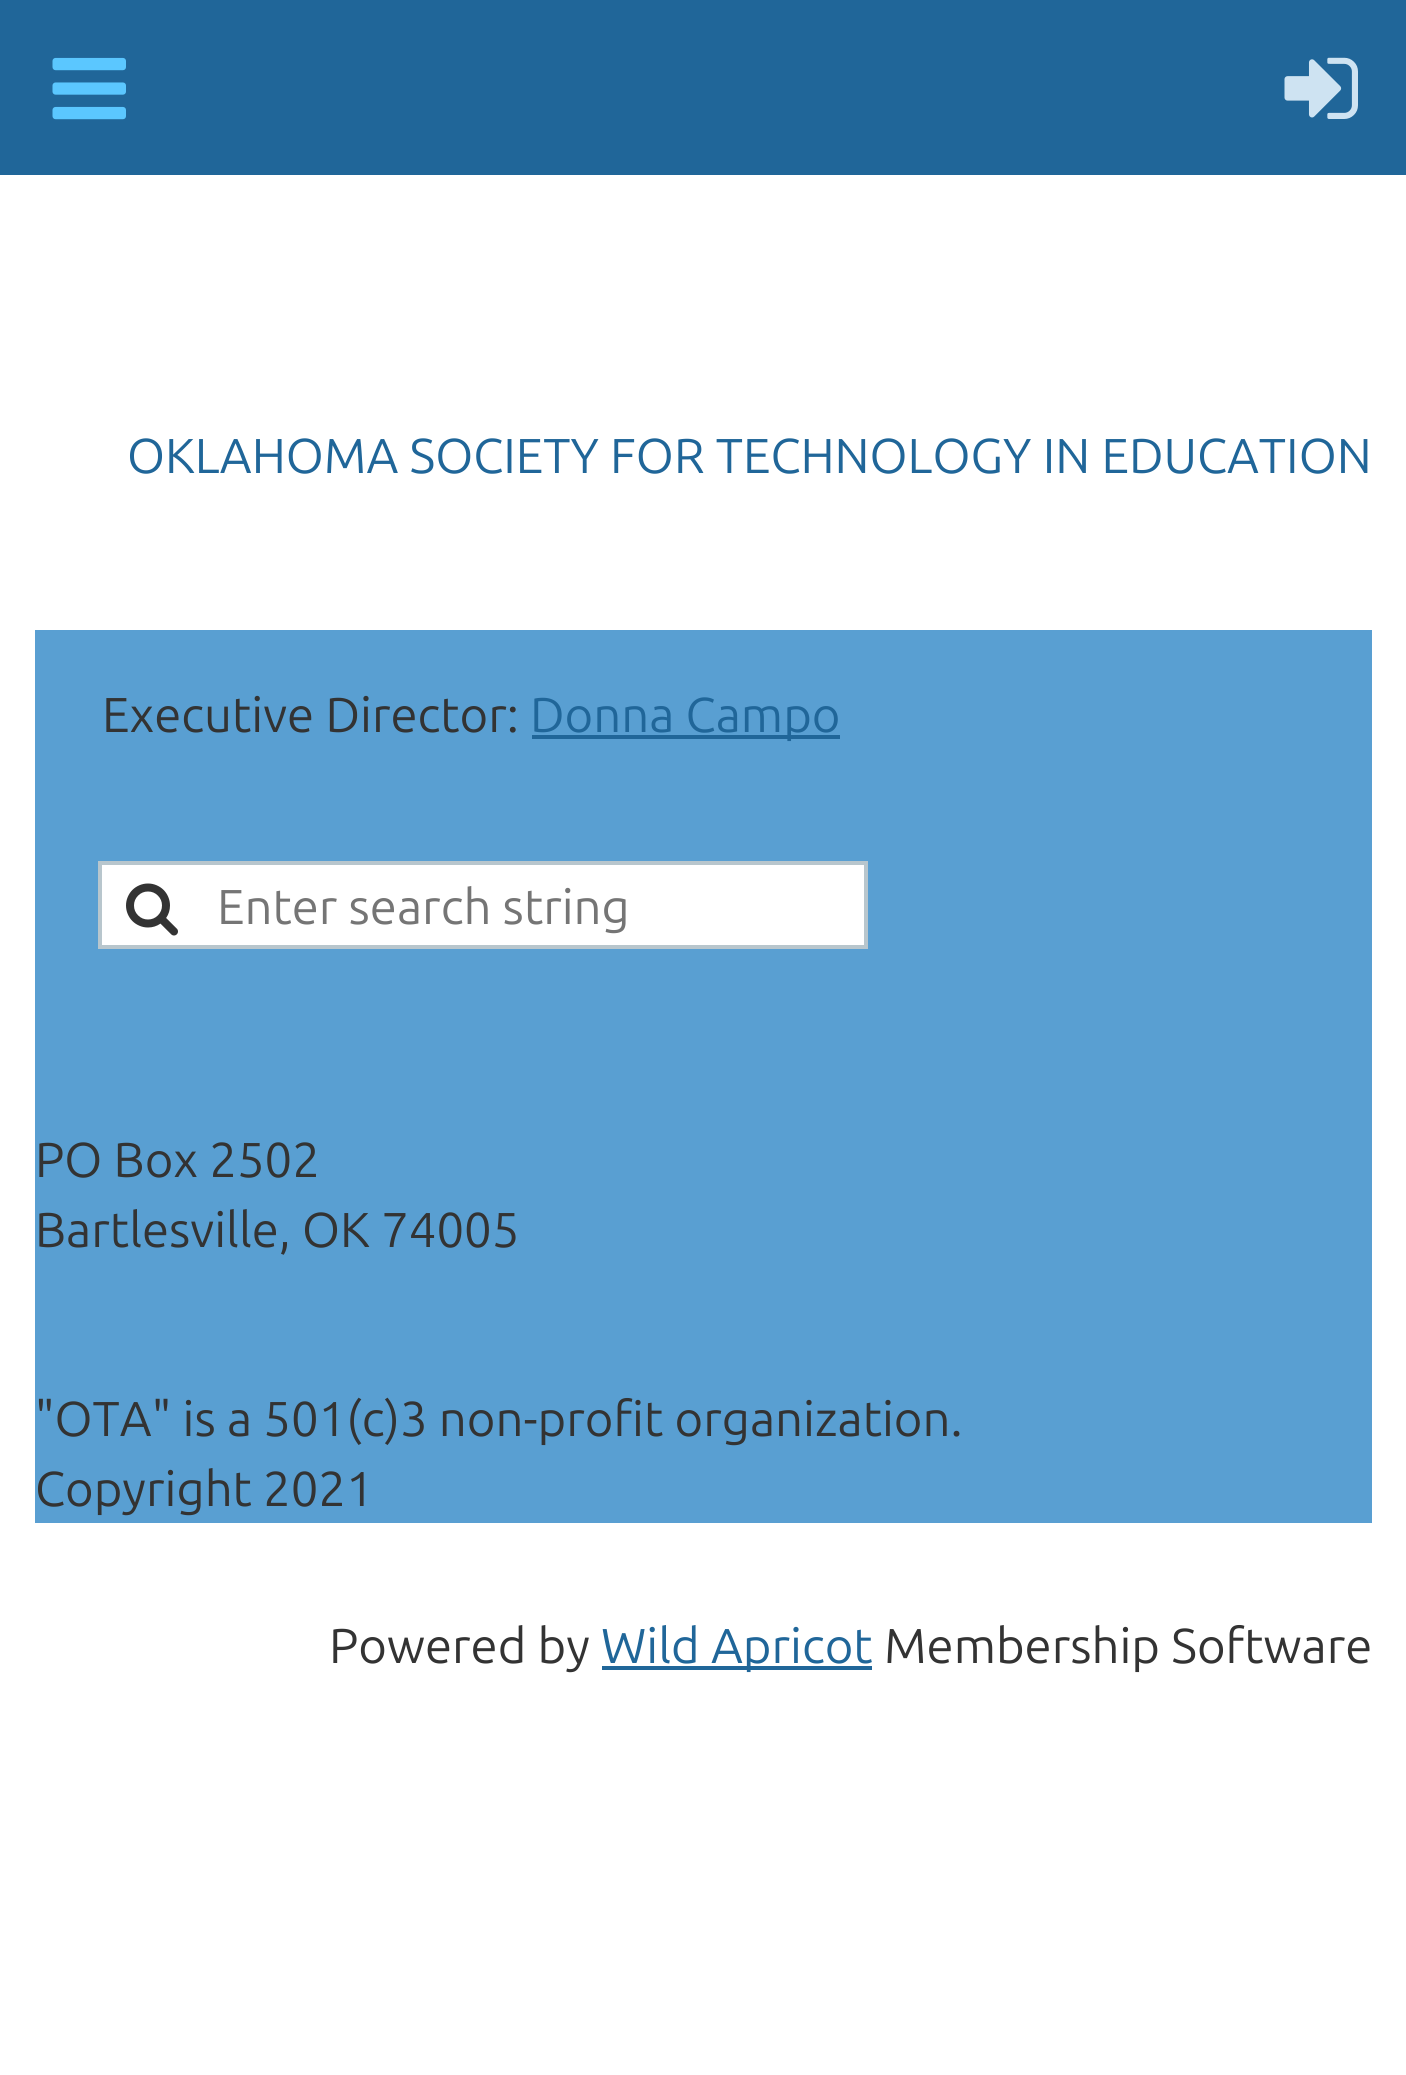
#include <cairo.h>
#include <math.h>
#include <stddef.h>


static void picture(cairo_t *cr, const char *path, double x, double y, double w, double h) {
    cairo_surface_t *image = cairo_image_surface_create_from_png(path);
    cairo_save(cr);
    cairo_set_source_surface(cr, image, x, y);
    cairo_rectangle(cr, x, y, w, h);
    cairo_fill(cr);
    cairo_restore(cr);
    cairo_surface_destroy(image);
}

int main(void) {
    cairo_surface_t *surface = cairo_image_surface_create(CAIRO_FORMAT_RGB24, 1406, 2075);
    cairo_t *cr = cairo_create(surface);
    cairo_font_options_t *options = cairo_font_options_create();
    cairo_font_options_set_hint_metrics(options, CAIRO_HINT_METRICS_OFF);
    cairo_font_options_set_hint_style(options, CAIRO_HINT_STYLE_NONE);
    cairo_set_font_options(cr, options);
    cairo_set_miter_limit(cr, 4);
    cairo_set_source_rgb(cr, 1, 1, 1);
    cairo_paint(cr);
    cairo_set_source_rgb(cr, 0.125, 0.4, 0.6);
    cairo_rectangle(cr, 0, 0, 1406, 175);
    cairo_fill(cr);
    picture(cr, "img1.png", 52, 57, 74, 63);
    picture(cr, "img2.png", 1284, 57, 74, 62);
    cairo_select_font_face(cr, "Ubuntu", CAIRO_FONT_SLANT_NORMAL, CAIRO_FONT_WEIGHT_NORMAL);
    cairo_set_font_size(cr, 49);
    cairo_move_to(cr, 127, 473);
    cairo_show_text(cr, "OKLAHOMA SOCIETY FOR TECHNOLOGY IN EDUCATION");
    cairo_set_source_rgb(cr, 0.349, 0.624, 0.824);
    cairo_rectangle(cr, 35, 630, 1337, 893);
    cairo_fill(cr);
    cairo_set_source_rgb(cr, 0.2, 0.2, 0.2);
    cairo_move_to(cr, 102, 732);
    cairo_show_text(cr, "Executive Director:");
    cairo_set_source_rgb(cr, 0.125, 0.4, 0.6);
    cairo_rectangle(cr, 532, 735, 308, 4);
    cairo_fill(cr);
    cairo_move_to(cr, 530, 732);
    cairo_show_text(cr, "Donna Campo");
    cairo_set_source_rgb(cr, 1, 1, 1);
    cairo_rectangle(cr, 100, 863, 766, 84);
    cairo_fill_preserve(cr);
    cairo_set_source_rgb(cr, 0.722, 0.776, 0.804);
    cairo_set_line_width(cr, 4);
    cairo_stroke(cr);
    picture(cr, "img3.png", 126, 883, 52, 53);
    cairo_set_source_rgb(cr, 0.459, 0.459, 0.459);
    cairo_move_to(cr, 217, 924);
    cairo_show_text(cr, "Enter search string");
    cairo_set_source_rgb(cr, 0.2, 0.2, 0.2);
    cairo_move_to(cr, 35, 1177);
    cairo_show_text(cr, "PO Box 2502");
    cairo_move_to(cr, 35, 1247);
    cairo_show_text(cr, "Bartlesville, OK 74005");
    cairo_move_to(cr, 35, 1436);
    cairo_show_text(cr, "\"OTA\" is a 501(c)3 non-profit organization.");
    cairo_move_to(cr, 35, 1506);
    cairo_show_text(cr, "Copyright 2021");
    cairo_move_to(cr, 329, 1663);
    cairo_show_text(cr, "Powered by");
    cairo_set_source_rgb(cr, 0.125, 0.4, 0.6);
    cairo_rectangle(cr, 602, 1666, 270, 4);
    cairo_fill(cr);
    cairo_move_to(cr, 601, 1663);
    cairo_show_text(cr, "Wild Apricot");
    cairo_set_source_rgb(cr, 0.2, 0.2, 0.2);
    cairo_move_to(cr, 884, 1663);
    cairo_show_text(cr, "Membership Software");
    cairo_surface_write_to_png(surface, "page.png");
    cairo_font_options_destroy(options);
    cairo_destroy(cr);
    cairo_surface_destroy(surface);
    return 0;
}
